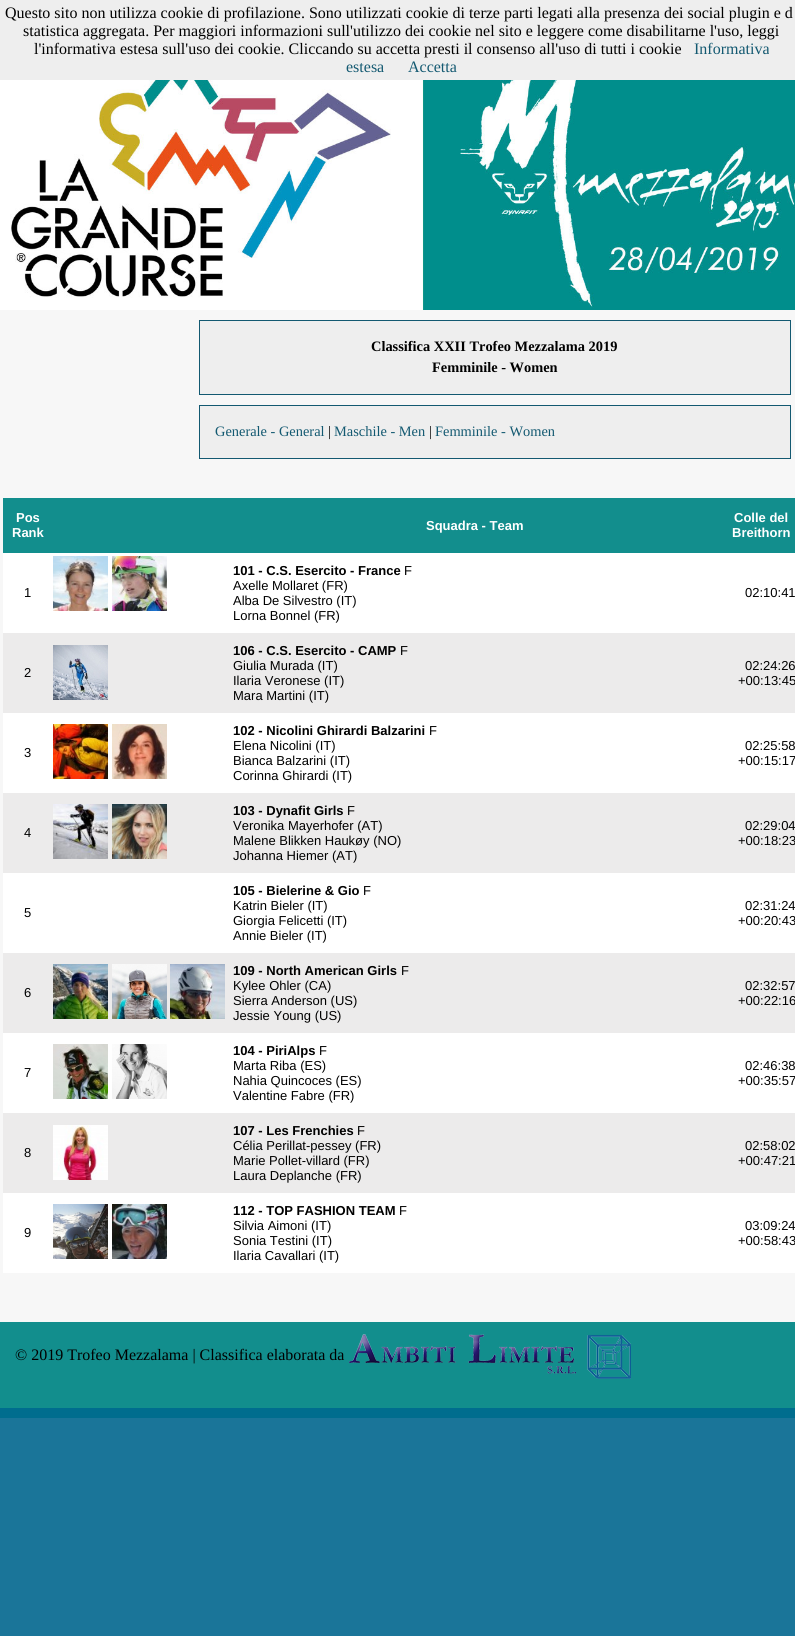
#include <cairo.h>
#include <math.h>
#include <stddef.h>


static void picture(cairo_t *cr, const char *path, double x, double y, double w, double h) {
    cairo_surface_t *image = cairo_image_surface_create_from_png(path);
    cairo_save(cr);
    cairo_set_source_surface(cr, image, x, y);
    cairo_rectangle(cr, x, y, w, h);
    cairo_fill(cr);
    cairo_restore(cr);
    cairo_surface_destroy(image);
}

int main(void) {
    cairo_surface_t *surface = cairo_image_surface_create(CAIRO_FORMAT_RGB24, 795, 1636);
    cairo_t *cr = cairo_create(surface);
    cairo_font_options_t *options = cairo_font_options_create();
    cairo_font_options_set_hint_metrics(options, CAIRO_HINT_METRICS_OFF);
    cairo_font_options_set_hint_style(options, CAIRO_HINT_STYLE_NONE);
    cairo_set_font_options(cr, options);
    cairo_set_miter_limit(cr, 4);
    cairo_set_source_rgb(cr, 0.102, 0.459, 0.6);
    cairo_paint(cr);
    picture(cr, "img1.png", 0, 1408, 795, 10);
    cairo_set_source_rgb(cr, 0.933, 0.933, 0.933);
    cairo_rectangle(cr, 0, 0, 795, 80);
    cairo_fill(cr);
    cairo_select_font_face(cr, "Liberation Serif", CAIRO_FONT_SLANT_NORMAL, CAIRO_FONT_WEIGHT_NORMAL);
    cairo_set_font_size(cr, 16);
    cairo_set_source_rgb(cr, 0, 0, 0);
    cairo_move_to(cr, 5, 18);
    cairo_show_text(cr, "Questo sito non utilizza cookie di profilazione. Sono utilizzati cookie di terze parti legati alla presenza dei social plugin e d");
    cairo_move_to(cr, 23, 36);
    cairo_show_text(cr, "statistica aggregata. Per maggiori informazioni sull'utilizzo dei cookie nel sito e leggere come disabilitarne l'uso, leggi");
    cairo_move_to(cr, 34, 54);
    cairo_show_text(cr, "l'informativa estesa sull'uso dei cookie. Cliccando su accetta presti il consenso all'uso di tutti i cookie");
    cairo_set_source_rgb(cr, 0.078, 0.349, 0.443);
    cairo_move_to(cr, 694, 54);
    cairo_show_text(cr, "Informativa");
    cairo_move_to(cr, 346, 72);
    cairo_show_text(cr, "estesa");
    cairo_move_to(cr, 408, 72);
    cairo_show_text(cr, "Accetta");
    cairo_set_source_rgb(cr, 0.965, 0.965, 0.965);
    cairo_rectangle(cr, 0, 310, 795, 1012);
    cairo_fill(cr);
    picture(cr, "img2.png", 0, 80, 795, 230);
    cairo_set_source_rgb(cr, 0.933, 0.933, 0.933);
    cairo_rectangle(cr, 199.5, 320.5, 591, 74);
    cairo_fill_preserve(cr);
    cairo_set_source_rgb(cr, 0.078, 0.349, 0.443);
    cairo_set_line_width(cr, 1);
    cairo_stroke(cr);
    cairo_select_font_face(cr, "Liberation Serif", CAIRO_FONT_SLANT_NORMAL, CAIRO_FONT_WEIGHT_BOLD);
    cairo_set_font_size(cr, 14.4);
    cairo_set_source_rgb(cr, 0, 0, 0);
    cairo_move_to(cr, 371, 351);
    cairo_show_text(cr, "Classifica XXII Trofeo Mezzalama 2019");
    cairo_move_to(cr, 432, 372);
    cairo_show_text(cr, "Femminile - Women");
    cairo_set_source_rgb(cr, 0.933, 0.933, 0.933);
    cairo_rectangle(cr, 199.5, 405.5, 591, 53);
    cairo_fill_preserve(cr);
    cairo_set_source_rgb(cr, 0.078, 0.349, 0.443);
    cairo_stroke(cr);
    cairo_select_font_face(cr, "Liberation Serif", CAIRO_FONT_SLANT_NORMAL, CAIRO_FONT_WEIGHT_NORMAL);
    cairo_move_to(cr, 215, 436);
    cairo_show_text(cr, "Generale - General");
    cairo_set_source_rgb(cr, 0, 0, 0);
    cairo_move_to(cr, 328, 436);
    cairo_show_text(cr, "|");
    cairo_set_source_rgb(cr, 0.078, 0.349, 0.443);
    cairo_move_to(cr, 334, 436);
    cairo_show_text(cr, "Maschile - Men");
    cairo_set_source_rgb(cr, 0, 0, 0);
    cairo_move_to(cr, 429, 436);
    cairo_show_text(cr, "|");
    cairo_set_source_rgb(cr, 0.078, 0.349, 0.443);
    cairo_move_to(cr, 435, 436);
    cairo_show_text(cr, "Femminile - Women");
    cairo_set_source_rgb(cr, 0.071, 0.557, 0.553);
    cairo_rectangle(cr, 3, 498, 792, 55);
    cairo_fill(cr);
    cairo_select_font_face(cr, "Liberation Sans", CAIRO_FONT_SLANT_NORMAL, CAIRO_FONT_WEIGHT_BOLD);
    cairo_set_font_size(cr, 13);
    cairo_set_source_rgb(cr, 1, 1, 1);
    cairo_move_to(cr, 16, 522);
    cairo_show_text(cr, "Pos");
    cairo_move_to(cr, 12, 537);
    cairo_show_text(cr, "Rank");
    cairo_move_to(cr, 426, 530);
    cairo_show_text(cr, "Squadra - Team");
    cairo_move_to(cr, 734, 522);
    cairo_show_text(cr, "Colle del");
    cairo_move_to(cr, 732, 537);
    cairo_show_text(cr, "Breithorn");
    cairo_rectangle(cr, 3, 553, 792, 80);
    cairo_fill(cr);
    cairo_select_font_face(cr, "Liberation Sans", CAIRO_FONT_SLANT_NORMAL, CAIRO_FONT_WEIGHT_NORMAL);
    cairo_set_source_rgb(cr, 0, 0, 0);
    cairo_move_to(cr, 24, 597);
    cairo_show_text(cr, "1");
    picture(cr, "img3.png", 53, 556, 55, 55);
    picture(cr, "img4.png", 112, 556, 55, 55);
    cairo_select_font_face(cr, "Liberation Sans", CAIRO_FONT_SLANT_NORMAL, CAIRO_FONT_WEIGHT_BOLD);
    cairo_move_to(cr, 233, 575);
    cairo_show_text(cr, "101 - C.S. Esercito - France");
    cairo_select_font_face(cr, "Liberation Sans", CAIRO_FONT_SLANT_NORMAL, CAIRO_FONT_WEIGHT_NORMAL);
    cairo_move_to(cr, 404, 575);
    cairo_show_text(cr, "F");
    cairo_move_to(cr, 233, 590);
    cairo_show_text(cr, "Axelle Mollaret (FR)");
    cairo_move_to(cr, 233, 605);
    cairo_show_text(cr, "Alba De Silvestro (IT)");
    cairo_move_to(cr, 233, 620);
    cairo_show_text(cr, "Lorna Bonnel (FR)");
    cairo_move_to(cr, 745, 597);
    cairo_show_text(cr, "02:10:41");
    cairo_set_source_rgb(cr, 0.922, 0.918, 0.918);
    cairo_rectangle(cr, 3, 633, 792, 80);
    cairo_fill(cr);
    cairo_set_source_rgb(cr, 0, 0, 0);
    cairo_move_to(cr, 24, 677);
    cairo_show_text(cr, "2");
    picture(cr, "img5.png", 53, 645, 55, 55);
    cairo_select_font_face(cr, "Liberation Sans", CAIRO_FONT_SLANT_NORMAL, CAIRO_FONT_WEIGHT_BOLD);
    cairo_move_to(cr, 233, 655);
    cairo_show_text(cr, "106 - C.S. Esercito - CAMP");
    cairo_select_font_face(cr, "Liberation Sans", CAIRO_FONT_SLANT_NORMAL, CAIRO_FONT_WEIGHT_NORMAL);
    cairo_move_to(cr, 400, 655);
    cairo_show_text(cr, "F");
    cairo_move_to(cr, 233, 670);
    cairo_show_text(cr, "Giulia Murada (IT)");
    cairo_move_to(cr, 233, 685);
    cairo_show_text(cr, "Ilaria Veronese (IT)");
    cairo_move_to(cr, 233, 700);
    cairo_show_text(cr, "Mara Martini (IT)");
    cairo_move_to(cr, 745, 670);
    cairo_show_text(cr, "02:24:26");
    cairo_move_to(cr, 738, 685);
    cairo_show_text(cr, "+00:13:45");
    cairo_set_source_rgb(cr, 1, 1, 1);
    cairo_rectangle(cr, 3, 713, 792, 80);
    cairo_fill(cr);
    cairo_set_source_rgb(cr, 0, 0, 0);
    cairo_move_to(cr, 24, 757);
    cairo_show_text(cr, "3");
    picture(cr, "img6.png", 53, 724, 55, 55);
    picture(cr, "img7.png", 112, 724, 55, 55);
    cairo_select_font_face(cr, "Liberation Sans", CAIRO_FONT_SLANT_NORMAL, CAIRO_FONT_WEIGHT_BOLD);
    cairo_move_to(cr, 233, 735);
    cairo_show_text(cr, "102 - Nicolini Ghirardi Balzarini");
    cairo_select_font_face(cr, "Liberation Sans", CAIRO_FONT_SLANT_NORMAL, CAIRO_FONT_WEIGHT_NORMAL);
    cairo_move_to(cr, 429, 735);
    cairo_show_text(cr, "F");
    cairo_move_to(cr, 233, 750);
    cairo_show_text(cr, "Elena Nicolini (IT)");
    cairo_move_to(cr, 233, 765);
    cairo_show_text(cr, "Bianca Balzarini (IT)");
    cairo_move_to(cr, 233, 780);
    cairo_show_text(cr, "Corinna Ghirardi (IT)");
    cairo_move_to(cr, 745, 750);
    cairo_show_text(cr, "02:25:58");
    cairo_move_to(cr, 738, 765);
    cairo_show_text(cr, "+00:15:17");
    cairo_set_source_rgb(cr, 0.922, 0.918, 0.918);
    cairo_rectangle(cr, 3, 793, 792, 80);
    cairo_fill(cr);
    cairo_set_source_rgb(cr, 0, 0, 0);
    cairo_move_to(cr, 24, 837);
    cairo_show_text(cr, "4");
    picture(cr, "img8.png", 53, 804, 55, 55);
    picture(cr, "img9.png", 112, 804, 55, 55);
    cairo_select_font_face(cr, "Liberation Sans", CAIRO_FONT_SLANT_NORMAL, CAIRO_FONT_WEIGHT_BOLD);
    cairo_move_to(cr, 233, 815);
    cairo_show_text(cr, "103 - Dynafit Girls");
    cairo_select_font_face(cr, "Liberation Sans", CAIRO_FONT_SLANT_NORMAL, CAIRO_FONT_WEIGHT_NORMAL);
    cairo_move_to(cr, 347, 815);
    cairo_show_text(cr, "F");
    cairo_move_to(cr, 233, 830);
    cairo_show_text(cr, "Veronika Mayerhofer (AT)");
    cairo_move_to(cr, 233, 845);
    cairo_show_text(cr, "Malene Blikken Haukøy (NO)");
    cairo_move_to(cr, 233, 860);
    cairo_show_text(cr, "Johanna Hiemer (AT)");
    cairo_move_to(cr, 745, 830);
    cairo_show_text(cr, "02:29:04");
    cairo_move_to(cr, 738, 845);
    cairo_show_text(cr, "+00:18:23");
    cairo_set_source_rgb(cr, 1, 1, 1);
    cairo_rectangle(cr, 3, 873, 792, 80);
    cairo_fill(cr);
    cairo_set_source_rgb(cr, 0, 0, 0);
    cairo_move_to(cr, 24, 917);
    cairo_show_text(cr, "5");
    cairo_select_font_face(cr, "Liberation Sans", CAIRO_FONT_SLANT_NORMAL, CAIRO_FONT_WEIGHT_BOLD);
    cairo_move_to(cr, 233, 895);
    cairo_show_text(cr, "105 - Bielerine & Gio");
    cairo_select_font_face(cr, "Liberation Sans", CAIRO_FONT_SLANT_NORMAL, CAIRO_FONT_WEIGHT_NORMAL);
    cairo_move_to(cr, 363, 895);
    cairo_show_text(cr, "F");
    cairo_move_to(cr, 233, 910);
    cairo_show_text(cr, "Katrin Bieler (IT)");
    cairo_move_to(cr, 233, 925);
    cairo_show_text(cr, "Giorgia Felicetti (IT)");
    cairo_move_to(cr, 233, 940);
    cairo_show_text(cr, "Annie Bieler (IT)");
    cairo_move_to(cr, 745, 910);
    cairo_show_text(cr, "02:31:24");
    cairo_move_to(cr, 738, 925);
    cairo_show_text(cr, "+00:20:43");
    cairo_set_source_rgb(cr, 0.922, 0.918, 0.918);
    cairo_rectangle(cr, 3, 953, 792, 80);
    cairo_fill(cr);
    cairo_set_source_rgb(cr, 0, 0, 0);
    cairo_move_to(cr, 24, 997);
    cairo_show_text(cr, "6");
    picture(cr, "img10.png", 53, 964, 55, 55);
    picture(cr, "img11.png", 112, 964, 55, 55);
    picture(cr, "img12.png", 170, 964, 55, 55);
    cairo_select_font_face(cr, "Liberation Sans", CAIRO_FONT_SLANT_NORMAL, CAIRO_FONT_WEIGHT_BOLD);
    cairo_move_to(cr, 233, 975);
    cairo_show_text(cr, "109 - North American Girls");
    cairo_select_font_face(cr, "Liberation Sans", CAIRO_FONT_SLANT_NORMAL, CAIRO_FONT_WEIGHT_NORMAL);
    cairo_move_to(cr, 401, 975);
    cairo_show_text(cr, "F");
    cairo_move_to(cr, 233, 990);
    cairo_show_text(cr, "Kylee Ohler (CA)");
    cairo_move_to(cr, 233, 1005);
    cairo_show_text(cr, "Sierra Anderson (US)");
    cairo_move_to(cr, 233, 1020);
    cairo_show_text(cr, "Jessie Young (US)");
    cairo_move_to(cr, 745, 990);
    cairo_show_text(cr, "02:32:57");
    cairo_move_to(cr, 738, 1005);
    cairo_show_text(cr, "+00:22:16");
    cairo_set_source_rgb(cr, 1, 1, 1);
    cairo_rectangle(cr, 3, 1033, 792, 80);
    cairo_fill(cr);
    cairo_set_source_rgb(cr, 0, 0, 0);
    cairo_move_to(cr, 24, 1077);
    cairo_show_text(cr, "7");
    picture(cr, "img13.png", 53, 1044, 55, 55);
    picture(cr, "img14.png", 112, 1044, 55, 55);
    cairo_select_font_face(cr, "Liberation Sans", CAIRO_FONT_SLANT_NORMAL, CAIRO_FONT_WEIGHT_BOLD);
    cairo_move_to(cr, 233, 1055);
    cairo_show_text(cr, "104 - PiriAlps");
    cairo_select_font_face(cr, "Liberation Sans", CAIRO_FONT_SLANT_NORMAL, CAIRO_FONT_WEIGHT_NORMAL);
    cairo_move_to(cr, 319, 1055);
    cairo_show_text(cr, "F");
    cairo_move_to(cr, 233, 1070);
    cairo_show_text(cr, "Marta Riba (ES)");
    cairo_move_to(cr, 233, 1085);
    cairo_show_text(cr, "Nahia Quincoces (ES)");
    cairo_move_to(cr, 233, 1100);
    cairo_show_text(cr, "Valentine Fabre (FR)");
    cairo_move_to(cr, 745, 1070);
    cairo_show_text(cr, "02:46:38");
    cairo_move_to(cr, 738, 1085);
    cairo_show_text(cr, "+00:35:57");
    cairo_set_source_rgb(cr, 0.922, 0.918, 0.918);
    cairo_rectangle(cr, 3, 1113, 792, 80);
    cairo_fill(cr);
    cairo_set_source_rgb(cr, 0, 0, 0);
    cairo_move_to(cr, 24, 1157);
    cairo_show_text(cr, "8");
    picture(cr, "img15.png", 53, 1125, 55, 55);
    cairo_select_font_face(cr, "Liberation Sans", CAIRO_FONT_SLANT_NORMAL, CAIRO_FONT_WEIGHT_BOLD);
    cairo_move_to(cr, 233, 1135);
    cairo_show_text(cr, "107 - Les Frenchies");
    cairo_select_font_face(cr, "Liberation Sans", CAIRO_FONT_SLANT_NORMAL, CAIRO_FONT_WEIGHT_NORMAL);
    cairo_move_to(cr, 357, 1135);
    cairo_show_text(cr, "F");
    cairo_move_to(cr, 233, 1150);
    cairo_show_text(cr, "Célia Perillat-pessey (FR)");
    cairo_move_to(cr, 233, 1165);
    cairo_show_text(cr, "Marie Pollet-villard (FR)");
    cairo_move_to(cr, 233, 1180);
    cairo_show_text(cr, "Laura Deplanche (FR)");
    cairo_move_to(cr, 745, 1150);
    cairo_show_text(cr, "02:58:02");
    cairo_move_to(cr, 738, 1165);
    cairo_show_text(cr, "+00:47:21");
    cairo_set_source_rgb(cr, 1, 1, 1);
    cairo_rectangle(cr, 3, 1193, 792, 80);
    cairo_fill(cr);
    cairo_set_source_rgb(cr, 0, 0, 0);
    cairo_move_to(cr, 24, 1237);
    cairo_show_text(cr, "9");
    picture(cr, "img16.png", 53, 1204, 55, 55);
    picture(cr, "img17.png", 112, 1204, 55, 55);
    cairo_select_font_face(cr, "Liberation Sans", CAIRO_FONT_SLANT_NORMAL, CAIRO_FONT_WEIGHT_BOLD);
    cairo_move_to(cr, 233, 1215);
    cairo_show_text(cr, "112 - TOP FASHION TEAM");
    cairo_select_font_face(cr, "Liberation Sans", CAIRO_FONT_SLANT_NORMAL, CAIRO_FONT_WEIGHT_NORMAL);
    cairo_move_to(cr, 399, 1215);
    cairo_show_text(cr, "F");
    cairo_move_to(cr, 233, 1230);
    cairo_show_text(cr, "Silvia Aimoni (IT)");
    cairo_move_to(cr, 233, 1245);
    cairo_show_text(cr, "Sonia Testini (IT)");
    cairo_move_to(cr, 233, 1260);
    cairo_show_text(cr, "Ilaria Cavallari (IT)");
    cairo_move_to(cr, 745, 1230);
    cairo_show_text(cr, "03:09:24");
    cairo_move_to(cr, 738, 1245);
    cairo_show_text(cr, "+00:58:43");
    cairo_set_source_rgb(cr, 0.071, 0.557, 0.553);
    cairo_rectangle(cr, 0, 1322, 795, 86);
    cairo_fill(cr);
    cairo_select_font_face(cr, "Liberation Serif", CAIRO_FONT_SLANT_NORMAL, CAIRO_FONT_WEIGHT_NORMAL);
    cairo_set_font_size(cr, 16);
    cairo_set_source_rgb(cr, 0, 0, 0);
    cairo_move_to(cr, 15, 1360);
    cairo_show_text(cr, "© 2019 Trofeo Mezzalama | Classifica elaborata da");
    picture(cr, "img18.png", 349, 1334, 282, 45);
    cairo_surface_write_to_png(surface, "page.png");
    cairo_font_options_destroy(options);
    cairo_destroy(cr);
    cairo_surface_destroy(surface);
    return 0;
}
